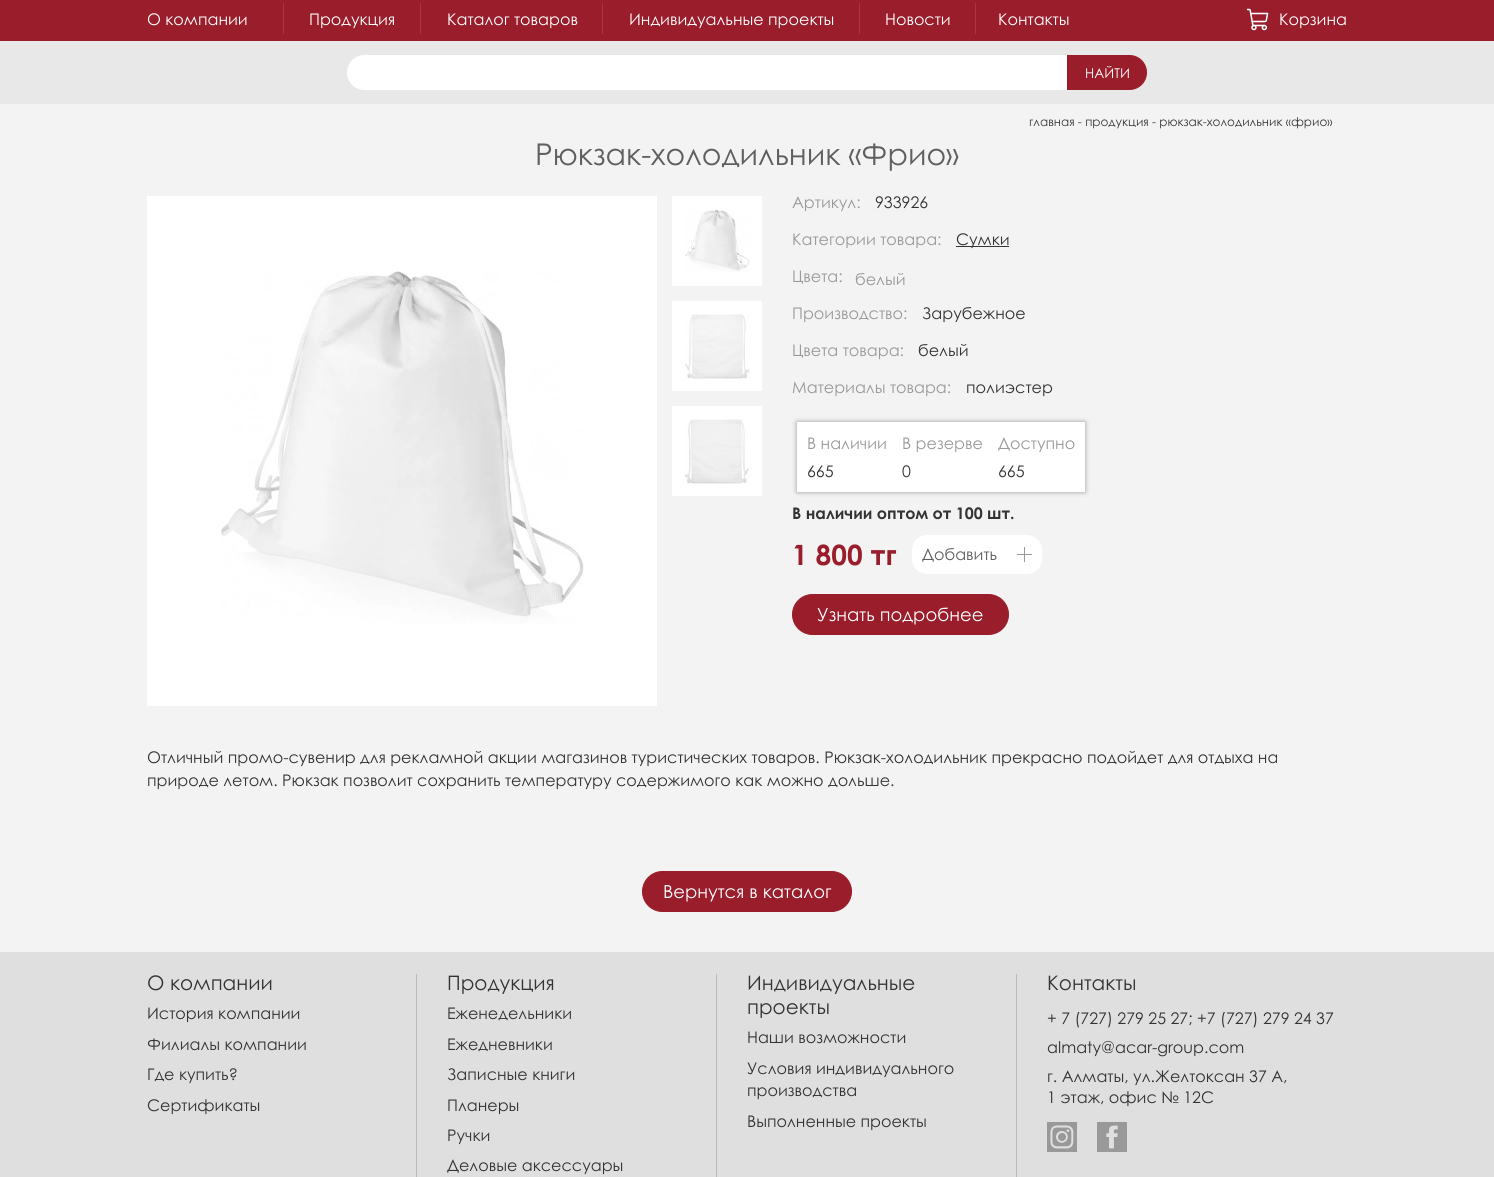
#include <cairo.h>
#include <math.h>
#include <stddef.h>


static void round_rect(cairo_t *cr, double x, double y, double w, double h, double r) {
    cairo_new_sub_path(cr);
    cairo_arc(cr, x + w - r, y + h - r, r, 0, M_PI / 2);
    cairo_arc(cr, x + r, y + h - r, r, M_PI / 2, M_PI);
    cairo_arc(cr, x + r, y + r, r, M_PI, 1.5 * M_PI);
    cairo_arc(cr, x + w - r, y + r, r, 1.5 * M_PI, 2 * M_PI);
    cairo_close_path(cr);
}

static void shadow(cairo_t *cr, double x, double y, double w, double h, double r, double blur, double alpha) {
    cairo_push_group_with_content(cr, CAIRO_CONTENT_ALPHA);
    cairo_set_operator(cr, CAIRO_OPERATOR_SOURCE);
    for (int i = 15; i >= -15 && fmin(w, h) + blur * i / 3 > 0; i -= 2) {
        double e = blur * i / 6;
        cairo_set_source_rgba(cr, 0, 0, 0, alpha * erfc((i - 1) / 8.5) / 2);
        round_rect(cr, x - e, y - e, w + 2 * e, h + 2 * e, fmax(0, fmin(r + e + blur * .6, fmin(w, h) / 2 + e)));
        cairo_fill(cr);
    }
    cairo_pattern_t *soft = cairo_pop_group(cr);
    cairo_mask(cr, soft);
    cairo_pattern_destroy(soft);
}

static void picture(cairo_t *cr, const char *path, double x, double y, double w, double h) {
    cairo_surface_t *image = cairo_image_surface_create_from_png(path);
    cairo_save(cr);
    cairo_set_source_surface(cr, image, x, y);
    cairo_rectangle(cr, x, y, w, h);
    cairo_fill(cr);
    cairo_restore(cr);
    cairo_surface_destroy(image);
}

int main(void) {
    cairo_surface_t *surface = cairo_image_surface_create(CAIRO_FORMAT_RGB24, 1494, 1177);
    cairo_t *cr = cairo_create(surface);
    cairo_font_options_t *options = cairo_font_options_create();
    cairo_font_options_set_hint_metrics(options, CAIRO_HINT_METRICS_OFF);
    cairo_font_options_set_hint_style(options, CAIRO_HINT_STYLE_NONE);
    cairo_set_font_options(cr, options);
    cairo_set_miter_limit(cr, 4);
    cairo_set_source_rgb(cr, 0.953, 0.953, 0.953);
    cairo_paint(cr);
    cairo_set_source_rgb(cr, 0.604, 0.114, 0.173);
    cairo_rectangle(cr, 0, 0, 1494, 41);
    cairo_fill(cr);
    cairo_select_font_face(cr, "Century Gothic", CAIRO_FONT_SLANT_NORMAL, CAIRO_FONT_WEIGHT_NORMAL);
    cairo_set_font_size(cr, 16);
    cairo_set_source_rgb(cr, 1, 1, 1);
    cairo_move_to(cr, 147, 25);
    cairo_show_text(cr, "О компании");
    cairo_set_source_rgb(cr, 0.698, 0.188, 0.251);
    cairo_rectangle(cr, 283, 3, 1, 31);
    cairo_fill(cr);
    cairo_set_source_rgb(cr, 1, 1, 1);
    cairo_move_to(cr, 309, 25);
    cairo_show_text(cr, "Продукция");
    cairo_set_source_rgb(cr, 0.698, 0.188, 0.251);
    cairo_rectangle(cr, 420, 3, 1, 31);
    cairo_fill(cr);
    cairo_set_source_rgb(cr, 1, 1, 1);
    cairo_move_to(cr, 447, 25);
    cairo_show_text(cr, "Каталог товаров");
    cairo_set_source_rgb(cr, 0.698, 0.188, 0.251);
    cairo_rectangle(cr, 602, 3, 1, 31);
    cairo_fill(cr);
    cairo_set_source_rgb(cr, 1, 1, 1);
    cairo_move_to(cr, 629, 25);
    cairo_show_text(cr, "Индивидуальные проекты");
    cairo_set_source_rgb(cr, 0.698, 0.188, 0.251);
    cairo_rectangle(cr, 859, 3, 1, 31);
    cairo_fill(cr);
    cairo_set_source_rgb(cr, 1, 1, 1);
    cairo_move_to(cr, 885, 25);
    cairo_show_text(cr, "Новости");
    cairo_set_source_rgb(cr, 0.698, 0.188, 0.251);
    cairo_rectangle(cr, 975, 3, 1, 31);
    cairo_fill(cr);
    cairo_set_source_rgb(cr, 1, 1, 1);
    cairo_move_to(cr, 998, 25);
    cairo_show_text(cr, "Контакты");
    picture(cr, "img1.png", 1246, 8, 23, 23);
    cairo_move_to(cr, 1279, 25);
    cairo_show_text(cr, "Корзина");
    cairo_set_source_rgb(cr, 0.91, 0.91, 0.91);
    cairo_rectangle(cr, 0, 41, 1494, 63);
    cairo_fill(cr);
    cairo_set_source_rgb(cr, 1, 1, 1);
    round_rect(cr, 347, 55, 800, 35, 17.5);
    cairo_fill(cr);
    cairo_set_source_rgb(cr, 0.604, 0.114, 0.173);
    cairo_new_path(cr);
    cairo_move_to(cr, 1067.5, 55.5);
    cairo_line_to(cr, 1129.5, 55.5);
    cairo_curve_to(cr, 1139, 55.5, 1146.5, 63, 1146.5, 72.5);
    cairo_curve_to(cr, 1146.5, 82, 1139, 89.5, 1129.5, 89.5);
    cairo_line_to(cr, 1067.5, 89.5);
    cairo_close_path(cr);
    cairo_fill_preserve(cr);
    cairo_set_line_width(cr, 1);
    cairo_stroke(cr);
    cairo_set_font_size(cr, 13.5);
    cairo_set_source_rgb(cr, 1, 1, 1);
    cairo_move_to(cr, 1085, 78);
    cairo_show_text(cr, "НАЙТИ");
    cairo_set_font_size(cr, 12);
    cairo_set_source_rgb(cr, 0.2, 0.2, 0.2);
    cairo_move_to(cr, 1029, 126);
    cairo_show_text(cr, "главная - продукция - рюкзак-холодильник «фрио»");
    cairo_set_font_size(cr, 30);
    cairo_set_source_rgb(cr, 0.373, 0.373, 0.373);
    cairo_move_to(cr, 535, 165);
    cairo_show_text(cr, "Рюкзак-холодильник «Фрио»");
    cairo_set_source_rgb(cr, 1, 1, 1);
    cairo_rectangle(cr, 147, 196, 510, 510);
    cairo_fill(cr);
    picture(cr, "img2.png", 221, 271, 363, 353);
    cairo_rectangle(cr, 672, 196, 90, 90);
    cairo_fill(cr);
    picture(cr, "img3.png", 685, 209, 65, 63);
    cairo_rectangle(cr, 672, 301, 90, 90);
    cairo_fill(cr);
    picture(cr, "img4.png", 684, 314, 66, 65);
    cairo_rectangle(cr, 672, 406, 90, 90);
    cairo_fill(cr);
    picture(cr, "img5.png", 684, 419, 66, 65);
    cairo_set_font_size(cr, 16);
    cairo_set_source_rgb(cr, 0.6, 0.6, 0.6);
    cairo_move_to(cr, 792, 208);
    cairo_show_text(cr, "Артикул:");
    cairo_set_source_rgb(cr, 0.2, 0.2, 0.2);
    cairo_move_to(cr, 875, 208);
    cairo_show_text(cr, "933926");
    cairo_set_source_rgb(cr, 0.6, 0.6, 0.6);
    cairo_move_to(cr, 792, 245);
    cairo_show_text(cr, "Категории товара:");
    cairo_set_source_rgb(cr, 0.2, 0.2, 0.2);
    cairo_rectangle(cr, 956, 246, 53, 1);
    cairo_fill(cr);
    cairo_move_to(cr, 956, 245);
    cairo_show_text(cr, "Сумки");
    cairo_set_source_rgb(cr, 0.6, 0.6, 0.6);
    cairo_move_to(cr, 792, 282);
    cairo_show_text(cr, "Цвета:");
    cairo_move_to(cr, 855, 285);
    cairo_show_text(cr, "белый");
    cairo_move_to(cr, 792, 319);
    cairo_show_text(cr, "Производство:");
    cairo_set_source_rgb(cr, 0.2, 0.2, 0.2);
    cairo_move_to(cr, 922, 319);
    cairo_show_text(cr, "Зарубежное");
    cairo_set_source_rgb(cr, 0.6, 0.6, 0.6);
    cairo_move_to(cr, 792, 356);
    cairo_show_text(cr, "Цвета товара:");
    cairo_set_source_rgb(cr, 0.2, 0.2, 0.2);
    cairo_move_to(cr, 918, 356);
    cairo_show_text(cr, "белый");
    cairo_set_source_rgb(cr, 0.6, 0.6, 0.6);
    cairo_move_to(cr, 792, 393);
    cairo_show_text(cr, "Материалы товара:");
    cairo_set_source_rgb(cr, 0.2, 0.2, 0.2);
    cairo_move_to(cr, 966, 393);
    cairo_show_text(cr, "полиэстер");
    cairo_set_source_rgb(cr, 0.6, 0.6, 0.6);
    shadow(cr, 797, 422, 288, 70, 0, 2.5, 1);
    cairo_set_source_rgb(cr, 1, 1, 1);
    cairo_rectangle(cr, 797, 422, 288, 70);
    cairo_fill(cr);
    cairo_set_source_rgb(cr, 0.6, 0.6, 0.6);
    cairo_move_to(cr, 807, 449);
    cairo_show_text(cr, "В наличии");
    cairo_set_source_rgb(cr, 0.2, 0.2, 0.2);
    cairo_move_to(cr, 807, 477);
    cairo_show_text(cr, "665");
    cairo_set_source_rgb(cr, 0.6, 0.6, 0.6);
    cairo_move_to(cr, 902, 449);
    cairo_show_text(cr, "В резерве");
    cairo_set_source_rgb(cr, 0.2, 0.2, 0.2);
    cairo_move_to(cr, 902, 477);
    cairo_show_text(cr, "0");
    cairo_set_source_rgb(cr, 0.6, 0.6, 0.6);
    cairo_move_to(cr, 998, 449);
    cairo_show_text(cr, "Доступно");
    cairo_set_source_rgb(cr, 0.2, 0.2, 0.2);
    cairo_move_to(cr, 998, 477);
    cairo_show_text(cr, "665");
    cairo_select_font_face(cr, "Century Gothic", CAIRO_FONT_SLANT_NORMAL, CAIRO_FONT_WEIGHT_BOLD);
    cairo_move_to(cr, 792, 519);
    cairo_show_text(cr, "В наличии оптом от 100 шт.");
    cairo_set_font_size(cr, 28);
    cairo_set_source_rgb(cr, 0.604, 0.114, 0.173);
    cairo_move_to(cr, 792, 565);
    cairo_show_text(cr, "1 800 тг");
    cairo_set_source_rgb(cr, 1, 1, 1);
    round_rect(cr, 912, 535, 130, 39, 15);
    cairo_fill(cr);
    cairo_select_font_face(cr, "Century Gothic", CAIRO_FONT_SLANT_NORMAL, CAIRO_FONT_WEIGHT_NORMAL);
    cairo_set_font_size(cr, 16);
    cairo_set_source_rgb(cr, 0.373, 0.373, 0.373);
    cairo_move_to(cr, 922, 560);
    cairo_show_text(cr, "Добавить");
    cairo_set_source_rgb(cr, 0.6, 0.6, 0.6);
    cairo_rectangle(cr, 1024, 547, 1, 15);
    cairo_fill(cr);
    cairo_rectangle(cr, 1017, 554, 15, 1);
    cairo_fill(cr);
    cairo_set_source_rgb(cr, 0.604, 0.114, 0.173);
    round_rect(cr, 792.5, 594.5, 216, 40, 20);
    cairo_fill_preserve(cr);
    cairo_stroke(cr);
    cairo_set_font_size(cr, 18);
    cairo_set_source_rgb(cr, 1, 1, 1);
    cairo_move_to(cr, 817, 621);
    cairo_show_text(cr, "Узнать подробнее");
    cairo_set_font_size(cr, 16);
    cairo_set_source_rgb(cr, 0.2, 0.2, 0.2);
    cairo_move_to(cr, 147, 763);
    cairo_show_text(cr, "Отличный промо-сувенир для рекламной акции магазинов туристических товаров. Рюкзак-холодильник прекрасно подойдет для отдыха на");
    cairo_move_to(cr, 147, 786);
    cairo_show_text(cr, "природе летом. Рюкзак позволит сохранить температуру содержимого как можно дольше.");
    cairo_set_source_rgb(cr, 0.604, 0.114, 0.173);
    round_rect(cr, 642.5, 871.5, 209, 40, 20);
    cairo_fill_preserve(cr);
    cairo_stroke(cr);
    cairo_set_font_size(cr, 18);
    cairo_set_source_rgb(cr, 1, 1, 1);
    cairo_move_to(cr, 663, 898);
    cairo_show_text(cr, "Вернутся в каталог");
    cairo_set_source_rgb(cr, 0.875, 0.875, 0.875);
    cairo_rectangle(cr, 0, 952, 1494, 225);
    cairo_fill(cr);
    cairo_set_source_rgb(cr, 0.729, 0.729, 0.729);
    cairo_rectangle(cr, 416, 974, 1, 203);
    cairo_fill(cr);
    cairo_set_font_size(cr, 20);
    cairo_set_source_rgb(cr, 0.2, 0.2, 0.2);
    cairo_move_to(cr, 147, 990);
    cairo_show_text(cr, "О компании");
    cairo_set_font_size(cr, 16);
    cairo_move_to(cr, 147, 1019);
    cairo_show_text(cr, "История компании");
    cairo_move_to(cr, 147, 1050);
    cairo_show_text(cr, "Филиалы компании");
    cairo_move_to(cr, 147, 1080);
    cairo_show_text(cr, "Где купить?");
    cairo_move_to(cr, 147, 1111);
    cairo_show_text(cr, "Сертификаты");
    cairo_set_source_rgb(cr, 0.729, 0.729, 0.729);
    cairo_rectangle(cr, 716, 974, 1, 203);
    cairo_fill(cr);
    cairo_set_font_size(cr, 20);
    cairo_set_source_rgb(cr, 0.2, 0.2, 0.2);
    cairo_move_to(cr, 447, 990);
    cairo_show_text(cr, "Продукция");
    cairo_set_font_size(cr, 16);
    cairo_move_to(cr, 447, 1019);
    cairo_show_text(cr, "Еженедельники");
    cairo_move_to(cr, 447, 1050);
    cairo_show_text(cr, "Ежедневники");
    cairo_move_to(cr, 447, 1080);
    cairo_show_text(cr, "Записные книги");
    cairo_move_to(cr, 447, 1111);
    cairo_show_text(cr, "Планеры");
    cairo_move_to(cr, 447, 1141);
    cairo_show_text(cr, "Ручки");
    cairo_move_to(cr, 447, 1171);
    cairo_show_text(cr, "Деловые аксессуары");
    cairo_set_source_rgb(cr, 0.729, 0.729, 0.729);
    cairo_rectangle(cr, 1016, 974, 1, 203);
    cairo_fill(cr);
    cairo_set_font_size(cr, 20);
    cairo_set_source_rgb(cr, 0.2, 0.2, 0.2);
    cairo_move_to(cr, 747, 990);
    cairo_show_text(cr, "Индивидуальные");
    cairo_move_to(cr, 747, 1014);
    cairo_show_text(cr, "проекты");
    cairo_set_font_size(cr, 16);
    cairo_move_to(cr, 747, 1043);
    cairo_show_text(cr, "Наши возможности");
    cairo_move_to(cr, 747, 1074);
    cairo_show_text(cr, "Условия индивидуального");
    cairo_move_to(cr, 747, 1096);
    cairo_show_text(cr, "производства");
    cairo_move_to(cr, 747, 1127);
    cairo_show_text(cr, "Выполненные проекты");
    cairo_set_font_size(cr, 20);
    cairo_move_to(cr, 1047, 990);
    cairo_show_text(cr, "Контакты");
    cairo_set_font_size(cr, 16);
    cairo_move_to(cr, 1047, 1024);
    cairo_show_text(cr, "+ 7 (727) 279 25 27; +7 (727) 279 24 37");
    cairo_move_to(cr, 1047, 1053);
    cairo_show_text(cr, "almaty@acar-group.com");
    cairo_move_to(cr, 1047, 1082);
    cairo_show_text(cr, "г. Алматы, ул.Желтоксан 37 А,");
    cairo_move_to(cr, 1047, 1103);
    cairo_show_text(cr, "1 этаж, офис № 12C");
    picture(cr, "img6.png", 1047, 1122, 30, 30);
    picture(cr, "img7.png", 1097, 1122, 30, 30);
    cairo_surface_write_to_png(surface, "page.png");
    cairo_font_options_destroy(options);
    cairo_destroy(cr);
    cairo_surface_destroy(surface);
    return 0;
}
